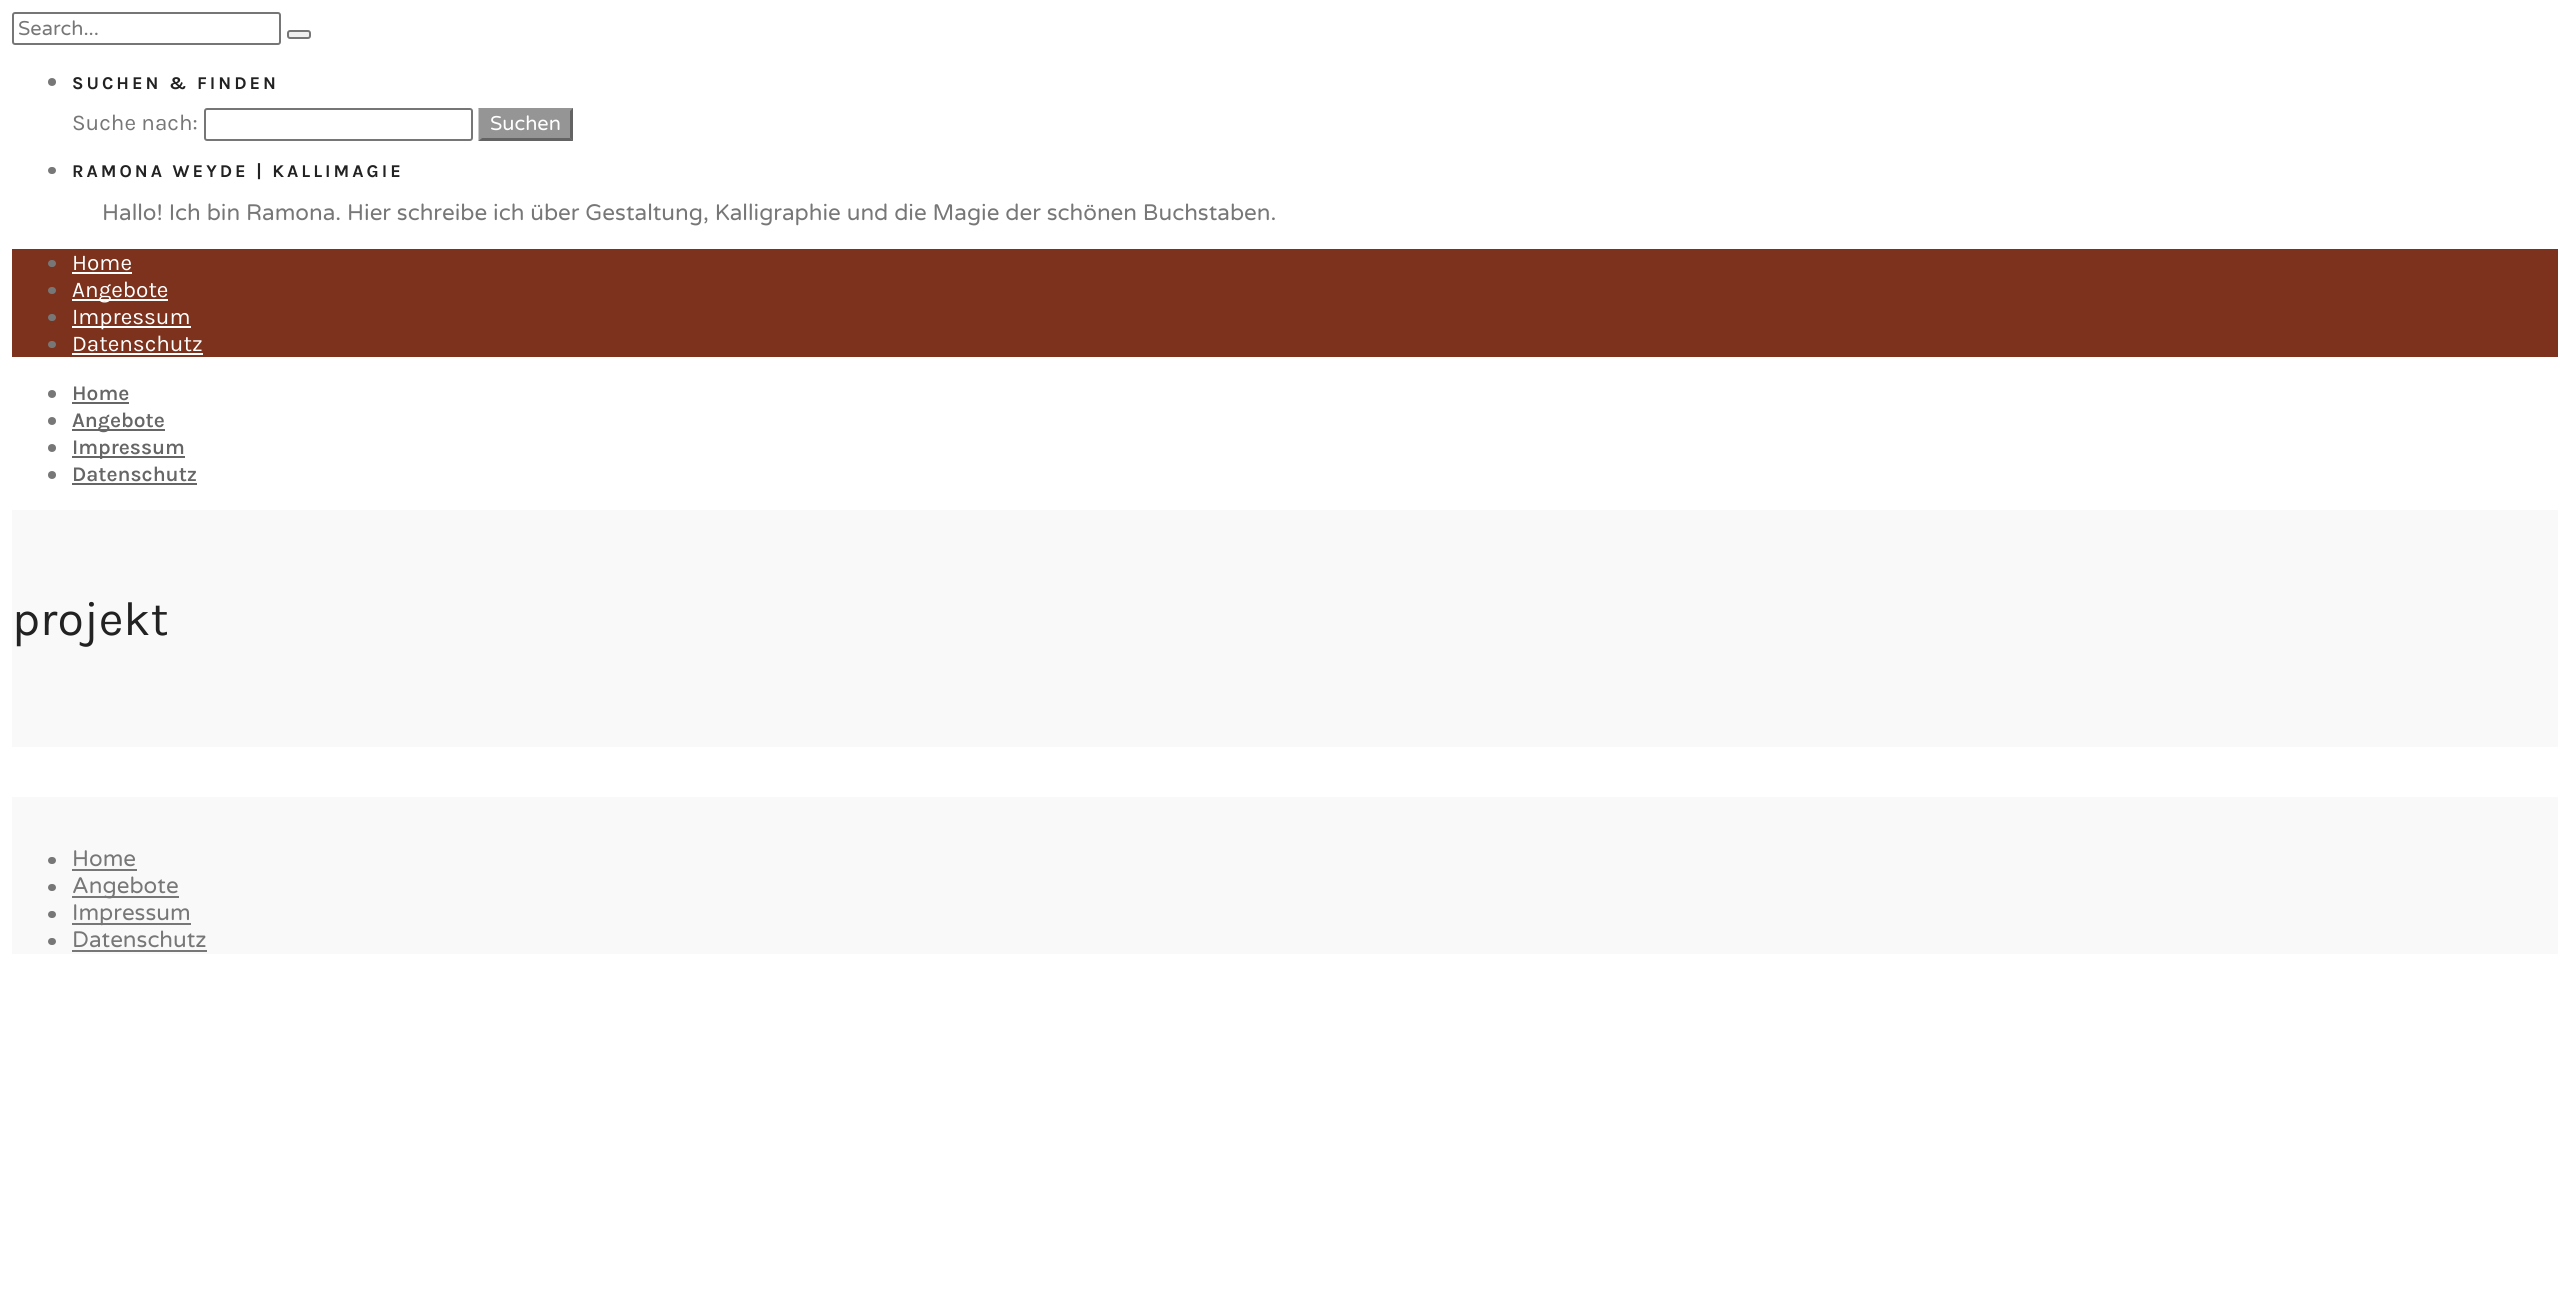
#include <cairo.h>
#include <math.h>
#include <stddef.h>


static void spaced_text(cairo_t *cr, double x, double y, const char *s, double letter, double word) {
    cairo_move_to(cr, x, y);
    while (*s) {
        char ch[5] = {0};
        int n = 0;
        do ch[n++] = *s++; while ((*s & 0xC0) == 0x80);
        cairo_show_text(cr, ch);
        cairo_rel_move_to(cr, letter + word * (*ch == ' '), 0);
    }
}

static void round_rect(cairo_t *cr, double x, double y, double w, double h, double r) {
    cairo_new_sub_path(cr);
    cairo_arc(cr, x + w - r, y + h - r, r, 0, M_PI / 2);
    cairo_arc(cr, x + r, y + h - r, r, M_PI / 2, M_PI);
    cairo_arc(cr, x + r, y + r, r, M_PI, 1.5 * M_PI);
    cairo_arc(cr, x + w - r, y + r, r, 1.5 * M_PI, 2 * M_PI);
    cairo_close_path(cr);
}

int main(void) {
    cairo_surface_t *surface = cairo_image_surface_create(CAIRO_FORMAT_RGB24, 2569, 1292);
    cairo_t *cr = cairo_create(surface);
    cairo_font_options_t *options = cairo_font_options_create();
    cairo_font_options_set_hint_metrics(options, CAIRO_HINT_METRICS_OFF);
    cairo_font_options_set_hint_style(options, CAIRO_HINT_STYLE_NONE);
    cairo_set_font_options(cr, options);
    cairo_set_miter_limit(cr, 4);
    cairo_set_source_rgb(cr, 1, 1, 1);
    cairo_paint(cr);
    round_rect(cr, 13, 13, 267, 31, 2);
    cairo_set_source_rgb(cr, 0.463, 0.463, 0.463);
    cairo_stroke(cr);
    cairo_select_font_face(cr, "Varela Round", CAIRO_FONT_SLANT_NORMAL, CAIRO_FONT_WEIGHT_NORMAL);
    cairo_set_font_size(cr, 20);
    cairo_set_source_rgb(cr, 0.467, 0.467, 0.467);
    cairo_move_to(cr, 18, 35);
    cairo_show_text(cr, "Search...");
    cairo_set_source_rgb(cr, 0.937, 0.937, 0.937);
    round_rect(cr, 288, 31, 22, 7, 2);
    cairo_fill_preserve(cr);
    cairo_set_source_rgb(cr, 0.463, 0.463, 0.463);
    cairo_stroke(cr);
    cairo_set_source_rgb(cr, 0.467, 0.467, 0.467);
    cairo_arc(cr, 52, 82, 4, 0, 2 * M_PI);
    cairo_fill(cr);
    cairo_select_font_face(cr, "Karla", CAIRO_FONT_SLANT_NORMAL, CAIRO_FONT_WEIGHT_BOLD);
    cairo_set_font_size(cr, 18);
    cairo_set_source_rgb(cr, 0.133, 0.133, 0.133);
    spaced_text(cr, 72, 89, "SUCHEN & FINDEN", 3, 0);
    cairo_select_font_face(cr, "Karla", CAIRO_FONT_SLANT_NORMAL, CAIRO_FONT_WEIGHT_NORMAL);
    cairo_set_font_size(cr, 22.5);
    cairo_set_source_rgb(cr, 0.467, 0.467, 0.467);
    cairo_move_to(cr, 72, 130);
    cairo_show_text(cr, "Suche nach:");
    round_rect(cr, 205, 109, 267, 31, 2);
    cairo_set_source_rgb(cr, 0.463, 0.463, 0.463);
    cairo_stroke(cr);
    cairo_set_source_rgb(cr, 0.584, 0.584, 0.584);
    cairo_rectangle(cr, 479, 108, 94, 33);
    cairo_fill(cr);
    cairo_new_path(cr);
    cairo_move_to(cr, 478, 108);
    cairo_line_to(cr, 573, 108);
    cairo_line_to(cr, 570, 111);
    cairo_line_to(cr, 482, 111);
    cairo_close_path(cr);
    cairo_fill(cr);
    cairo_set_source_rgb(cr, 0.388, 0.388, 0.388);
    cairo_new_path(cr);
    cairo_move_to(cr, 573, 108);
    cairo_line_to(cr, 573, 141);
    cairo_line_to(cr, 570, 138);
    cairo_line_to(cr, 570, 111);
    cairo_close_path(cr);
    cairo_fill(cr);
    cairo_new_path(cr);
    cairo_move_to(cr, 573, 141);
    cairo_line_to(cr, 478, 141);
    cairo_line_to(cr, 482, 138);
    cairo_line_to(cr, 570, 138);
    cairo_close_path(cr);
    cairo_fill(cr);
    cairo_set_source_rgb(cr, 0.584, 0.584, 0.584);
    cairo_new_path(cr);
    cairo_move_to(cr, 478.5, 141);
    cairo_line_to(cr, 478.5, 108);
    cairo_line_to(cr, 481.5, 111);
    cairo_line_to(cr, 481.5, 138);
    cairo_close_path(cr);
    cairo_fill(cr);
    cairo_select_font_face(cr, "Varela Round", CAIRO_FONT_SLANT_NORMAL, CAIRO_FONT_WEIGHT_NORMAL);
    cairo_set_font_size(cr, 20);
    cairo_set_source_rgb(cr, 1, 1, 1);
    cairo_move_to(cr, 490, 130);
    cairo_show_text(cr, "Suchen");
    cairo_set_source_rgb(cr, 0.467, 0.467, 0.467);
    round_rect(cr, 48, 167, 8, 7, 3.5);
    cairo_fill(cr);
    cairo_select_font_face(cr, "Karla", CAIRO_FONT_SLANT_NORMAL, CAIRO_FONT_WEIGHT_BOLD);
    cairo_set_font_size(cr, 18);
    cairo_set_source_rgb(cr, 0.133, 0.133, 0.133);
    spaced_text(cr, 72, 177, "RAMONA WEYDE | KALLIMAGIE", 3, 0);
    cairo_select_font_face(cr, "Varela Round", CAIRO_FONT_SLANT_NORMAL, CAIRO_FONT_WEIGHT_NORMAL);
    cairo_set_font_size(cr, 22.5);
    cairo_set_source_rgb(cr, 0.467, 0.467, 0.467);
    cairo_move_to(cr, 102, 220);
    cairo_show_text(cr, "Hallo! Ich bin Ramona. Hier schreibe ich über Gestaltung, Kalligraphie und die Magie der schönen Buchstaben.");
    cairo_set_source_rgb(cr, 0.486, 0.196, 0.11);
    cairo_rectangle(cr, 12, 249, 2546, 108);
    cairo_fill(cr);
    cairo_set_source_rgb(cr, 0.467, 0.467, 0.467);
    round_rect(cr, 48, 260, 8, 7, 3.5);
    cairo_fill(cr);
    cairo_select_font_face(cr, "Karla", CAIRO_FONT_SLANT_NORMAL, CAIRO_FONT_WEIGHT_NORMAL);
    cairo_set_source_rgb(cr, 1, 1, 1);
    cairo_move_to(cr, 72, 270);
    cairo_show_text(cr, "Home");
    cairo_rectangle(cr, 72, 272, 60, 2);
    cairo_fill(cr);
    cairo_set_source_rgb(cr, 0.467, 0.467, 0.467);
    round_rect(cr, 48, 287, 8, 7, 3.5);
    cairo_fill(cr);
    cairo_set_source_rgb(cr, 1, 1, 1);
    cairo_rectangle(cr, 72, 299, 96, 2);
    cairo_fill(cr);
    cairo_move_to(cr, 72, 297);
    cairo_show_text(cr, "Angebote");
    cairo_set_source_rgb(cr, 0.467, 0.467, 0.467);
    round_rect(cr, 48, 314, 8, 7, 3.5);
    cairo_fill(cr);
    cairo_set_source_rgb(cr, 1, 1, 1);
    cairo_rectangle(cr, 72, 326, 119, 2);
    cairo_fill(cr);
    cairo_move_to(cr, 72, 324);
    cairo_show_text(cr, "Impressum");
    cairo_set_source_rgb(cr, 0.467, 0.467, 0.467);
    round_rect(cr, 48, 341, 8, 7, 3.5);
    cairo_fill(cr);
    cairo_set_source_rgb(cr, 1, 1, 1);
    cairo_move_to(cr, 72, 351);
    cairo_show_text(cr, "Datenschutz");
    cairo_rectangle(cr, 72, 353, 131, 2);
    cairo_fill(cr);
    cairo_set_source_rgb(cr, 0.467, 0.467, 0.467);
    cairo_arc(cr, 52, 394, 4, 0, 2 * M_PI);
    cairo_fill(cr);
    cairo_select_font_face(cr, "Karla SemiBold", CAIRO_FONT_SLANT_NORMAL, CAIRO_FONT_WEIGHT_NORMAL);
    cairo_set_font_size(cr, 21);
    cairo_set_source_rgb(cr, 0.4, 0.4, 0.4);
    cairo_move_to(cr, 72, 400);
    cairo_show_text(cr, "Home");
    cairo_rectangle(cr, 72, 402, 57, 2);
    cairo_fill(cr);
    cairo_set_source_rgb(cr, 0.467, 0.467, 0.467);
    cairo_arc(cr, 52, 421, 4, 0, 2 * M_PI);
    cairo_fill(cr);
    cairo_set_source_rgb(cr, 0.4, 0.4, 0.4);
    cairo_rectangle(cr, 72, 429, 93, 2);
    cairo_fill(cr);
    cairo_move_to(cr, 72, 427);
    cairo_show_text(cr, "Angebote");
    cairo_set_source_rgb(cr, 0.467, 0.467, 0.467);
    cairo_new_path(cr);
    cairo_arc(cr, 52, 448, 4, 0, 2 * M_PI);
    cairo_fill(cr);
    cairo_set_source_rgb(cr, 0.4, 0.4, 0.4);
    cairo_rectangle(cr, 72, 456, 113, 2);
    cairo_fill(cr);
    cairo_move_to(cr, 72, 454);
    cairo_show_text(cr, "Impressum");
    cairo_set_source_rgb(cr, 0.467, 0.467, 0.467);
    cairo_new_path(cr);
    cairo_arc(cr, 52, 475, 4, 0, 2 * M_PI);
    cairo_fill(cr);
    cairo_set_source_rgb(cr, 0.4, 0.4, 0.4);
    cairo_move_to(cr, 72, 481);
    cairo_show_text(cr, "Datenschutz");
    cairo_rectangle(cr, 72, 483, 125, 2);
    cairo_fill(cr);
    cairo_set_source_rgb(cr, 0.976, 0.976, 0.976);
    cairo_rectangle(cr, 12, 510, 2546, 237);
    cairo_fill(cr);
    cairo_select_font_face(cr, "Karla", CAIRO_FONT_SLANT_NORMAL, CAIRO_FONT_WEIGHT_NORMAL);
    cairo_set_font_size(cr, 48);
    cairo_set_source_rgb(cr, 0.133, 0.133, 0.133);
    cairo_move_to(cr, 12, 635);
    cairo_show_text(cr, "projekt");
    cairo_set_source_rgb(cr, 0.976, 0.976, 0.976);
    cairo_rectangle(cr, 12, 797, 2546, 157);
    cairo_fill(cr);
    cairo_set_source_rgb(cr, 0.467, 0.467, 0.467);
    round_rect(cr, 48, 857, 8, 7, 3.5);
    cairo_fill(cr);
    cairo_select_font_face(cr, "Varela Round", CAIRO_FONT_SLANT_NORMAL, CAIRO_FONT_WEIGHT_NORMAL);
    cairo_set_font_size(cr, 22.5);
    cairo_move_to(cr, 72, 866);
    cairo_show_text(cr, "Home");
    cairo_rectangle(cr, 72, 869, 65, 2);
    cairo_fill(cr);
    round_rect(cr, 48, 884, 8, 7, 3.5);
    cairo_fill(cr);
    cairo_rectangle(cr, 72, 896, 107, 2);
    cairo_fill(cr);
    cairo_move_to(cr, 72, 893);
    cairo_show_text(cr, "Angebote");
    round_rect(cr, 48, 911, 8, 7, 3.5);
    cairo_fill(cr);
    cairo_rectangle(cr, 72, 923, 119, 2);
    cairo_fill(cr);
    cairo_move_to(cr, 72, 920);
    cairo_show_text(cr, "Impressum");
    round_rect(cr, 48, 938, 8, 7, 3.5);
    cairo_fill(cr);
    cairo_move_to(cr, 72, 947);
    cairo_show_text(cr, "Datenschutz");
    cairo_rectangle(cr, 72, 950, 135, 2);
    cairo_fill(cr);
    cairo_surface_write_to_png(surface, "page.png");
    cairo_font_options_destroy(options);
    cairo_destroy(cr);
    cairo_surface_destroy(surface);
    return 0;
}
